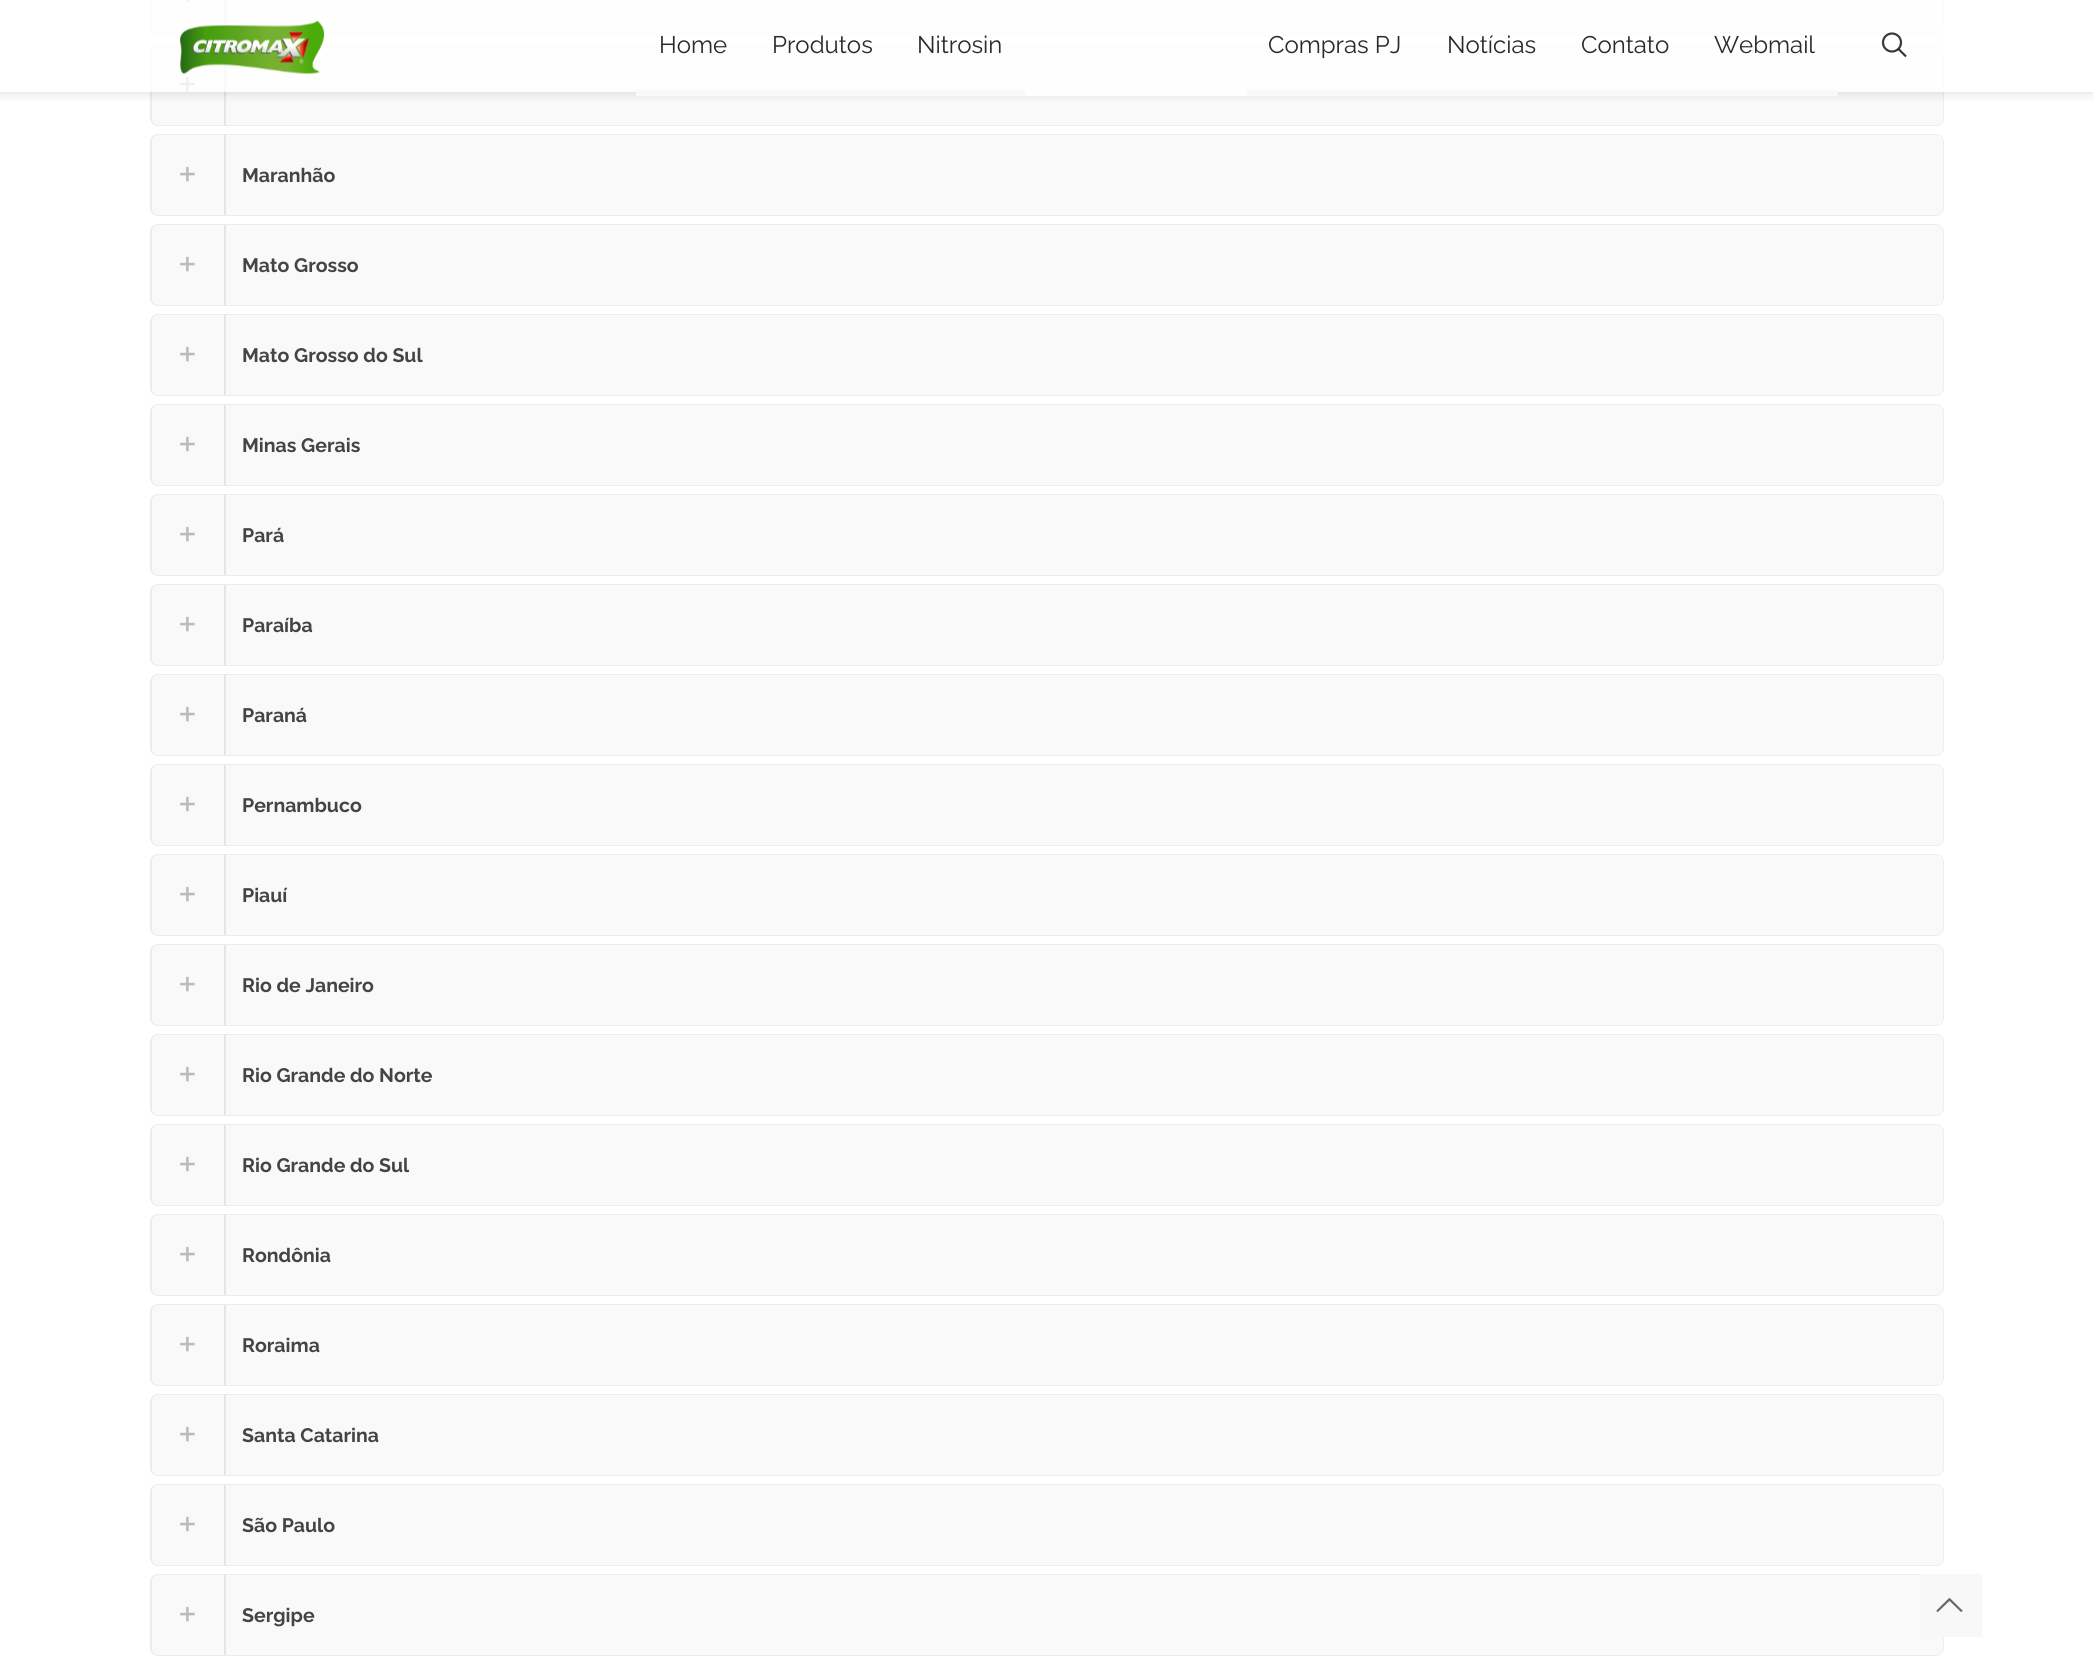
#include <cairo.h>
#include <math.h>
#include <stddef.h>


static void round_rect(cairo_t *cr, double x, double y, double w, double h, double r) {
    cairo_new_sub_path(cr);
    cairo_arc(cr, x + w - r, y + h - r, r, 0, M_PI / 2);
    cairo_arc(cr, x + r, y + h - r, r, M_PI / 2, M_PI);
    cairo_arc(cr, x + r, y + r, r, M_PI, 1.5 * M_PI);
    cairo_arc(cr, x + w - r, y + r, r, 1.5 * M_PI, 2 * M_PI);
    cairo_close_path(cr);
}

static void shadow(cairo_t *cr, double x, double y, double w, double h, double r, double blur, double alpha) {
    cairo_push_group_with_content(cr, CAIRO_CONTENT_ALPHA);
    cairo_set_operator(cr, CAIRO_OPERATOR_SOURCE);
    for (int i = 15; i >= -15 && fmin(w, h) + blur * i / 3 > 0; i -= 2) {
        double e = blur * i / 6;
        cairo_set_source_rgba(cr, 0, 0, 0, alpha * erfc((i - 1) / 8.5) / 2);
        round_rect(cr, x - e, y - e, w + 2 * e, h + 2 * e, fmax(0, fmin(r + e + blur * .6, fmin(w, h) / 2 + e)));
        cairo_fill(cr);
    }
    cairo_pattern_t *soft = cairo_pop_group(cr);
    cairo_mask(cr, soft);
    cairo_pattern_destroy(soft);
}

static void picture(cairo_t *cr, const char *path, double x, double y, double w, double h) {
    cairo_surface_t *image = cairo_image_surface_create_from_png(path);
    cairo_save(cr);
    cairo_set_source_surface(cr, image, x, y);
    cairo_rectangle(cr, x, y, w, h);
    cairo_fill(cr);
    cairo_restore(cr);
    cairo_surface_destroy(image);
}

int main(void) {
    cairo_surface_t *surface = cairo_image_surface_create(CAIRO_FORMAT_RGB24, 2093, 1666);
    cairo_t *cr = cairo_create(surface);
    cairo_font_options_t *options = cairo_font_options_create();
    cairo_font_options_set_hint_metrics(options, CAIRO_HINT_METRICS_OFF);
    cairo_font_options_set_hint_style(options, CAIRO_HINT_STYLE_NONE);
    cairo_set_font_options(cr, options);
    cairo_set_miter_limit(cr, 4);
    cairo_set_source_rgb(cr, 1, 1, 1);
    cairo_paint(cr);
    round_rect(cr, 151, -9, 1792, 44, 7);
    cairo_set_source_rgb(cr, 0.922, 0.922, 0.922);
    cairo_stroke(cr);
    cairo_set_source_rgb(cr, 0.976, 0.976, 0.976);
    round_rect(cr, 152, -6, 1791, 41, 6);
    cairo_fill(cr);
    picture(cr, "img2.png", 186, 0, 3, 2);
    cairo_set_source_rgb(cr, 0.898, 0.898, 0.898);
    cairo_rectangle(cr, 224, 0, 2, 35);
    cairo_fill(cr);
    round_rect(cr, 151, 45, 1792, 80, 7);
    cairo_set_source_rgb(cr, 0.922, 0.922, 0.922);
    cairo_stroke(cr);
    cairo_set_source_rgb(cr, 0.976, 0.976, 0.976);
    round_rect(cr, 152, 45, 1791, 80, 6);
    cairo_fill(cr);
    picture(cr, "img3.png", 180, 76, 15, 16);
    cairo_set_source_rgb(cr, 0.898, 0.898, 0.898);
    cairo_rectangle(cr, 224, 45, 2, 80);
    cairo_fill(cr);
    cairo_save(cr);
    cairo_set_fill_rule(cr, CAIRO_FILL_RULE_EVEN_ODD);
    cairo_new_path(cr);
    cairo_move_to(cr, 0, 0);
    cairo_line_to(cr, 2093, 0);
    cairo_line_to(cr, 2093, 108);
    cairo_line_to(cr, 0, 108);
    cairo_close_path(cr);
    cairo_move_to(cr, 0, 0);
    cairo_line_to(cr, 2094, 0);
    cairo_line_to(cr, 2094, 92);
    cairo_line_to(cr, 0, 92);
    cairo_close_path(cr);
    cairo_clip(cr);
    cairo_set_source_rgb(cr, 0, 0, 0);
    shadow(cr, 0, 3, 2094, 92, 0, 4, 0.1);
    cairo_restore(cr);
    cairo_set_source_rgba(cr, 1, 1, 1, 0.78);
    cairo_rectangle(cr, 0, 0, 2093, 92);
    cairo_fill(cr);
    picture(cr, "img1.png", 180, 20, 144, 54);
    cairo_select_font_face(cr, "Raleway", CAIRO_FONT_SLANT_NORMAL, CAIRO_FONT_WEIGHT_NORMAL);
    cairo_set_font_size(cr, 24);
    cairo_set_source_rgb(cr, 0.161, 0.161, 0.161);
    cairo_move_to(cr, 659, 53);
    cairo_show_text(cr, "Home");
    cairo_set_source_rgb(cr, 0.976, 0.976, 0.976);
    cairo_rectangle(cr, 636, 90, 390, 6);
    cairo_fill(cr);
    cairo_set_source_rgb(cr, 0.161, 0.161, 0.161);
    cairo_move_to(cr, 772, 53);
    cairo_show_text(cr, "Produtos");
    cairo_move_to(cr, 917, 53);
    cairo_show_text(cr, "Nitrosin");
    cairo_move_to(cr, 1268, 53);
    cairo_show_text(cr, "Compras PJ");
    cairo_set_source_rgb(cr, 0.976, 0.976, 0.976);
    cairo_rectangle(cr, 1247, 90, 591, 6);
    cairo_fill(cr);
    cairo_set_source_rgb(cr, 0.161, 0.161, 0.161);
    cairo_move_to(cr, 1447, 53);
    cairo_show_text(cr, "Notícias");
    cairo_move_to(cr, 1581, 53);
    cairo_show_text(cr, "Contato");
    cairo_move_to(cr, 1714, 53);
    cairo_show_text(cr, "Webmail");
    cairo_set_source_rgb(cr, 1, 1, 1);
    cairo_rectangle(cr, 1026, 91, 221, 5);
    cairo_fill(cr);
    cairo_arc(cr, 1892, 42.5, 9, 0, 2 * M_PI);
    cairo_set_source_rgba(cr, 0, 0, 0, 0.78);
    cairo_set_line_width(cr, 2.2);
    cairo_stroke(cr);
    cairo_new_path(cr);
    cairo_move_to(cr, 1898.5, 49);
    cairo_line_to(cr, 1906, 56.5);
    cairo_set_source_rgba(cr, 0.027, 0.027, 0.027, 0.8);
    cairo_stroke(cr);
    round_rect(cr, 151, 135, 1792, 80, 7);
    cairo_set_source_rgb(cr, 0.922, 0.922, 0.922);
    cairo_set_line_width(cr, 2);
    cairo_stroke(cr);
    cairo_set_source_rgb(cr, 0.976, 0.976, 0.976);
    round_rect(cr, 152, 135, 1791, 80, 6);
    cairo_fill(cr);
    picture(cr, "img3.png", 180, 166, 15, 16);
    cairo_set_source_rgb(cr, 0.898, 0.898, 0.898);
    cairo_rectangle(cr, 224, 135, 2, 80);
    cairo_fill(cr);
    cairo_select_font_face(cr, "Raleway", CAIRO_FONT_SLANT_NORMAL, CAIRO_FONT_WEIGHT_BOLD);
    cairo_set_font_size(cr, 19.5);
    cairo_set_source_rgb(cr, 0.267, 0.267, 0.267);
    cairo_move_to(cr, 242, 182);
    cairo_show_text(cr, "Maranhão");
    round_rect(cr, 151, 225, 1792, 80, 7);
    cairo_set_source_rgb(cr, 0.922, 0.922, 0.922);
    cairo_stroke(cr);
    cairo_set_source_rgb(cr, 0.976, 0.976, 0.976);
    round_rect(cr, 152, 225, 1791, 80, 6);
    cairo_fill(cr);
    picture(cr, "img3.png", 180, 256, 15, 16);
    cairo_set_source_rgb(cr, 0.898, 0.898, 0.898);
    cairo_rectangle(cr, 224, 225, 2, 80);
    cairo_fill(cr);
    cairo_set_source_rgb(cr, 0.267, 0.267, 0.267);
    cairo_move_to(cr, 242, 272);
    cairo_show_text(cr, "Mato Grosso");
    round_rect(cr, 151, 315, 1792, 80, 7);
    cairo_set_source_rgb(cr, 0.922, 0.922, 0.922);
    cairo_stroke(cr);
    cairo_set_source_rgb(cr, 0.976, 0.976, 0.976);
    round_rect(cr, 152, 315, 1791, 80, 6);
    cairo_fill(cr);
    picture(cr, "img3.png", 180, 346, 15, 16);
    cairo_set_source_rgb(cr, 0.898, 0.898, 0.898);
    cairo_rectangle(cr, 224, 315, 2, 80);
    cairo_fill(cr);
    cairo_set_source_rgb(cr, 0.267, 0.267, 0.267);
    cairo_move_to(cr, 242, 362);
    cairo_show_text(cr, "Mato Grosso do Sul");
    round_rect(cr, 151, 405, 1792, 80, 7);
    cairo_set_source_rgb(cr, 0.922, 0.922, 0.922);
    cairo_stroke(cr);
    cairo_set_source_rgb(cr, 0.976, 0.976, 0.976);
    round_rect(cr, 152, 405, 1791, 80, 6);
    cairo_fill(cr);
    picture(cr, "img3.png", 180, 436, 15, 16);
    cairo_set_source_rgb(cr, 0.898, 0.898, 0.898);
    cairo_rectangle(cr, 224, 405, 2, 80);
    cairo_fill(cr);
    cairo_set_source_rgb(cr, 0.267, 0.267, 0.267);
    cairo_move_to(cr, 242, 452);
    cairo_show_text(cr, "Minas Gerais");
    round_rect(cr, 151, 495, 1792, 80, 7);
    cairo_set_source_rgb(cr, 0.922, 0.922, 0.922);
    cairo_stroke(cr);
    cairo_set_source_rgb(cr, 0.976, 0.976, 0.976);
    round_rect(cr, 152, 495, 1791, 80, 6);
    cairo_fill(cr);
    picture(cr, "img3.png", 180, 526, 15, 16);
    cairo_set_source_rgb(cr, 0.898, 0.898, 0.898);
    cairo_rectangle(cr, 224, 495, 2, 80);
    cairo_fill(cr);
    cairo_set_source_rgb(cr, 0.267, 0.267, 0.267);
    cairo_move_to(cr, 242, 542);
    cairo_show_text(cr, "Pará");
    round_rect(cr, 151, 585, 1792, 80, 7);
    cairo_set_source_rgb(cr, 0.922, 0.922, 0.922);
    cairo_stroke(cr);
    cairo_set_source_rgb(cr, 0.976, 0.976, 0.976);
    round_rect(cr, 152, 585, 1791, 80, 6);
    cairo_fill(cr);
    picture(cr, "img3.png", 180, 616, 15, 16);
    cairo_set_source_rgb(cr, 0.898, 0.898, 0.898);
    cairo_rectangle(cr, 224, 585, 2, 80);
    cairo_fill(cr);
    cairo_set_source_rgb(cr, 0.267, 0.267, 0.267);
    cairo_move_to(cr, 242, 632);
    cairo_show_text(cr, "Paraíba");
    round_rect(cr, 151, 675, 1792, 80, 7);
    cairo_set_source_rgb(cr, 0.922, 0.922, 0.922);
    cairo_stroke(cr);
    cairo_set_source_rgb(cr, 0.976, 0.976, 0.976);
    round_rect(cr, 152, 675, 1791, 80, 6);
    cairo_fill(cr);
    picture(cr, "img3.png", 180, 706, 15, 16);
    cairo_set_source_rgb(cr, 0.898, 0.898, 0.898);
    cairo_rectangle(cr, 224, 675, 2, 80);
    cairo_fill(cr);
    cairo_set_source_rgb(cr, 0.267, 0.267, 0.267);
    cairo_move_to(cr, 242, 722);
    cairo_show_text(cr, "Paraná");
    round_rect(cr, 151, 765, 1792, 80, 7);
    cairo_set_source_rgb(cr, 0.922, 0.922, 0.922);
    cairo_stroke(cr);
    cairo_set_source_rgb(cr, 0.976, 0.976, 0.976);
    round_rect(cr, 152, 765, 1791, 80, 6);
    cairo_fill(cr);
    picture(cr, "img3.png", 180, 796, 15, 16);
    cairo_set_source_rgb(cr, 0.898, 0.898, 0.898);
    cairo_rectangle(cr, 224, 765, 2, 80);
    cairo_fill(cr);
    cairo_set_source_rgb(cr, 0.267, 0.267, 0.267);
    cairo_move_to(cr, 242, 812);
    cairo_show_text(cr, "Pernambuco");
    round_rect(cr, 151, 855, 1792, 80, 7);
    cairo_set_source_rgb(cr, 0.922, 0.922, 0.922);
    cairo_stroke(cr);
    cairo_set_source_rgb(cr, 0.976, 0.976, 0.976);
    round_rect(cr, 152, 855, 1791, 80, 6);
    cairo_fill(cr);
    picture(cr, "img3.png", 180, 886, 15, 16);
    cairo_set_source_rgb(cr, 0.898, 0.898, 0.898);
    cairo_rectangle(cr, 224, 855, 2, 80);
    cairo_fill(cr);
    cairo_set_source_rgb(cr, 0.267, 0.267, 0.267);
    cairo_move_to(cr, 242, 902);
    cairo_show_text(cr, "Piauí");
    round_rect(cr, 151, 945, 1792, 80, 7);
    cairo_set_source_rgb(cr, 0.922, 0.922, 0.922);
    cairo_stroke(cr);
    cairo_set_source_rgb(cr, 0.976, 0.976, 0.976);
    round_rect(cr, 152, 945, 1791, 80, 6);
    cairo_fill(cr);
    picture(cr, "img3.png", 180, 976, 15, 16);
    cairo_set_source_rgb(cr, 0.898, 0.898, 0.898);
    cairo_rectangle(cr, 224, 945, 2, 80);
    cairo_fill(cr);
    cairo_set_source_rgb(cr, 0.267, 0.267, 0.267);
    cairo_move_to(cr, 242, 992);
    cairo_show_text(cr, "Rio de Janeiro");
    round_rect(cr, 151, 1035, 1792, 80, 7);
    cairo_set_source_rgb(cr, 0.922, 0.922, 0.922);
    cairo_stroke(cr);
    cairo_set_source_rgb(cr, 0.976, 0.976, 0.976);
    round_rect(cr, 152, 1035, 1791, 80, 6);
    cairo_fill(cr);
    picture(cr, "img3.png", 180, 1066, 15, 16);
    cairo_set_source_rgb(cr, 0.898, 0.898, 0.898);
    cairo_rectangle(cr, 224, 1035, 2, 80);
    cairo_fill(cr);
    cairo_set_source_rgb(cr, 0.267, 0.267, 0.267);
    cairo_move_to(cr, 242, 1082);
    cairo_show_text(cr, "Rio Grande do Norte");
    round_rect(cr, 151, 1125, 1792, 80, 7);
    cairo_set_source_rgb(cr, 0.922, 0.922, 0.922);
    cairo_stroke(cr);
    cairo_set_source_rgb(cr, 0.976, 0.976, 0.976);
    round_rect(cr, 152, 1125, 1791, 80, 6);
    cairo_fill(cr);
    picture(cr, "img3.png", 180, 1156, 15, 16);
    cairo_set_source_rgb(cr, 0.898, 0.898, 0.898);
    cairo_rectangle(cr, 224, 1125, 2, 80);
    cairo_fill(cr);
    cairo_set_source_rgb(cr, 0.267, 0.267, 0.267);
    cairo_move_to(cr, 242, 1172);
    cairo_show_text(cr, "Rio Grande do Sul");
    round_rect(cr, 151, 1215, 1792, 80, 7);
    cairo_set_source_rgb(cr, 0.922, 0.922, 0.922);
    cairo_stroke(cr);
    cairo_set_source_rgb(cr, 0.976, 0.976, 0.976);
    round_rect(cr, 152, 1215, 1791, 80, 6);
    cairo_fill(cr);
    picture(cr, "img3.png", 180, 1246, 15, 16);
    cairo_set_source_rgb(cr, 0.898, 0.898, 0.898);
    cairo_rectangle(cr, 224, 1215, 2, 80);
    cairo_fill(cr);
    cairo_set_source_rgb(cr, 0.267, 0.267, 0.267);
    cairo_move_to(cr, 242, 1262);
    cairo_show_text(cr, "Rondônia");
    round_rect(cr, 151, 1305, 1792, 80, 7);
    cairo_set_source_rgb(cr, 0.922, 0.922, 0.922);
    cairo_stroke(cr);
    cairo_set_source_rgb(cr, 0.976, 0.976, 0.976);
    round_rect(cr, 152, 1305, 1791, 80, 6);
    cairo_fill(cr);
    picture(cr, "img3.png", 180, 1336, 15, 16);
    cairo_set_source_rgb(cr, 0.898, 0.898, 0.898);
    cairo_rectangle(cr, 224, 1305, 2, 80);
    cairo_fill(cr);
    cairo_set_source_rgb(cr, 0.267, 0.267, 0.267);
    cairo_move_to(cr, 242, 1352);
    cairo_show_text(cr, "Roraima");
    round_rect(cr, 151, 1395, 1792, 80, 7);
    cairo_set_source_rgb(cr, 0.922, 0.922, 0.922);
    cairo_stroke(cr);
    cairo_set_source_rgb(cr, 0.976, 0.976, 0.976);
    round_rect(cr, 152, 1395, 1791, 80, 6);
    cairo_fill(cr);
    picture(cr, "img3.png", 180, 1426, 15, 16);
    cairo_set_source_rgb(cr, 0.898, 0.898, 0.898);
    cairo_rectangle(cr, 224, 1395, 2, 80);
    cairo_fill(cr);
    cairo_set_source_rgb(cr, 0.267, 0.267, 0.267);
    cairo_move_to(cr, 242, 1442);
    cairo_show_text(cr, "Santa Catarina");
    round_rect(cr, 151, 1485, 1792, 80, 7);
    cairo_set_source_rgb(cr, 0.922, 0.922, 0.922);
    cairo_stroke(cr);
    cairo_set_source_rgb(cr, 0.976, 0.976, 0.976);
    round_rect(cr, 152, 1485, 1791, 80, 6);
    cairo_fill(cr);
    picture(cr, "img3.png", 180, 1516, 15, 16);
    cairo_set_source_rgb(cr, 0.898, 0.898, 0.898);
    cairo_rectangle(cr, 224, 1485, 2, 80);
    cairo_fill(cr);
    cairo_set_source_rgb(cr, 0.267, 0.267, 0.267);
    cairo_move_to(cr, 242, 1532);
    cairo_show_text(cr, "São Paulo");
    round_rect(cr, 151, 1575, 1792, 80, 7);
    cairo_set_source_rgb(cr, 0.922, 0.922, 0.922);
    cairo_stroke(cr);
    cairo_set_source_rgb(cr, 0.976, 0.976, 0.976);
    round_rect(cr, 152, 1575, 1791, 80, 6);
    cairo_fill(cr);
    picture(cr, "img3.png", 180, 1606, 15, 16);
    cairo_set_source_rgb(cr, 0.898, 0.898, 0.898);
    cairo_rectangle(cr, 224, 1575, 2, 80);
    cairo_fill(cr);
    cairo_set_source_rgb(cr, 0.267, 0.267, 0.267);
    cairo_move_to(cr, 242, 1622);
    cairo_show_text(cr, "Sergipe");
    cairo_set_source_rgb(cr, 0.969, 0.969, 0.969);
    cairo_rectangle(cr, 1919, 1574, 63, 63);
    cairo_fill(cr);
    picture(cr, "img4.png", 1936, 1598, 27, 14);
    cairo_surface_write_to_png(surface, "page.png");
    cairo_font_options_destroy(options);
    cairo_destroy(cr);
    cairo_surface_destroy(surface);
    return 0;
}
